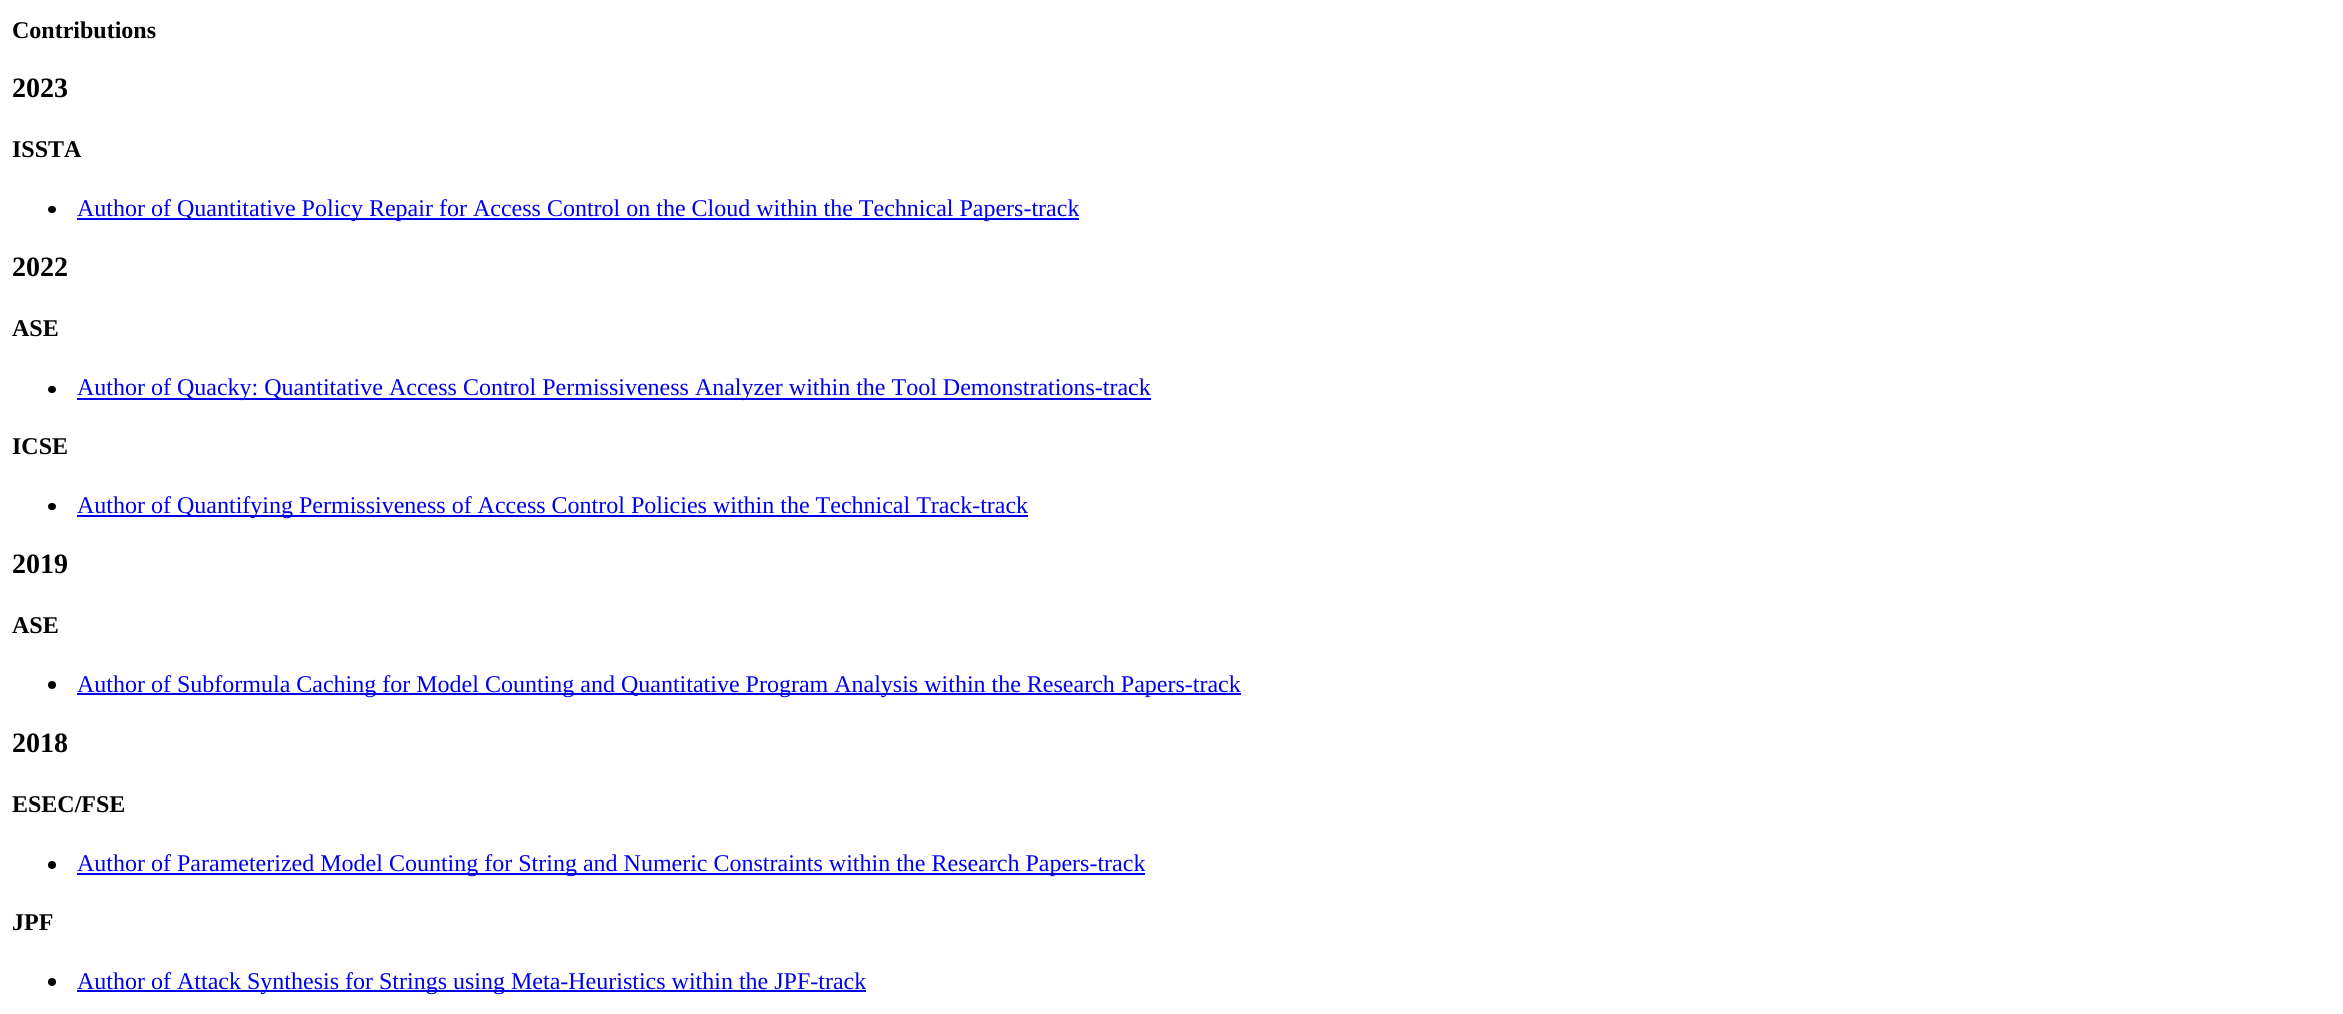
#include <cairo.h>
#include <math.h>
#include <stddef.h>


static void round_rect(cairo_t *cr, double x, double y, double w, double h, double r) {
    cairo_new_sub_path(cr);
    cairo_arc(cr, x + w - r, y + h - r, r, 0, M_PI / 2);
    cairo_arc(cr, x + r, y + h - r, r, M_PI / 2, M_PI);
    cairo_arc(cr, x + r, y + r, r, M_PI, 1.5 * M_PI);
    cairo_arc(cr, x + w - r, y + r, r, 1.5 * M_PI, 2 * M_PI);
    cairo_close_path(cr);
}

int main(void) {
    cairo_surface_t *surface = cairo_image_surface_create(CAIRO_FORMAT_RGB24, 2343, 1014);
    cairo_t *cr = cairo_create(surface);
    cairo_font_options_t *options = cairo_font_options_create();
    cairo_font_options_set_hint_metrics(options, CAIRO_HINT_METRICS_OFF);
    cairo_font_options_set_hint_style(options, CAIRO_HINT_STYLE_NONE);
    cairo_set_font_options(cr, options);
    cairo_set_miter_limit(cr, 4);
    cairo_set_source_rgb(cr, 1, 1, 1);
    cairo_paint(cr);
    cairo_select_font_face(cr, "Liberation Serif", CAIRO_FONT_SLANT_NORMAL, CAIRO_FONT_WEIGHT_BOLD);
    cairo_set_font_size(cr, 24);
    cairo_set_source_rgb(cr, 0, 0, 0);
    cairo_move_to(cr, 12, 38);
    cairo_show_text(cr, "Contributions");
    cairo_set_font_size(cr, 28);
    cairo_move_to(cr, 12, 97);
    cairo_show_text(cr, "2023");
    cairo_set_font_size(cr, 24);
    cairo_move_to(cr, 12, 157);
    cairo_show_text(cr, "ISSTA");
    round_rect(cr, 48, 206, 8, 7, 3.5);
    cairo_fill(cr);
    cairo_set_source_rgb(cr, 0, 0, 0.933);
    cairo_rectangle(cr, 77, 218, 1002, 2);
    cairo_fill(cr);
    cairo_select_font_face(cr, "Liberation Serif", CAIRO_FONT_SLANT_NORMAL, CAIRO_FONT_WEIGHT_NORMAL);
    cairo_move_to(cr, 77, 216);
    cairo_show_text(cr, "Author of Quantitative Policy Repair for Access Control on the Cloud within the Technical Papers-track");
    cairo_select_font_face(cr, "Liberation Serif", CAIRO_FONT_SLANT_NORMAL, CAIRO_FONT_WEIGHT_BOLD);
    cairo_set_font_size(cr, 28);
    cairo_set_source_rgb(cr, 0, 0, 0);
    cairo_move_to(cr, 12, 276);
    cairo_show_text(cr, "2022");
    cairo_set_font_size(cr, 24);
    cairo_move_to(cr, 12, 336);
    cairo_show_text(cr, "ASE");
    round_rect(cr, 48, 386, 8, 7, 3.5);
    cairo_fill(cr);
    cairo_set_source_rgb(cr, 0, 0, 0.933);
    cairo_rectangle(cr, 77, 398, 1074, 2);
    cairo_fill(cr);
    cairo_select_font_face(cr, "Liberation Serif", CAIRO_FONT_SLANT_NORMAL, CAIRO_FONT_WEIGHT_NORMAL);
    cairo_move_to(cr, 77, 395);
    cairo_show_text(cr, "Author of Quacky: Quantitative Access Control Permissiveness Analyzer within the Tool Demonstrations-track");
    cairo_select_font_face(cr, "Liberation Serif", CAIRO_FONT_SLANT_NORMAL, CAIRO_FONT_WEIGHT_BOLD);
    cairo_set_source_rgb(cr, 0, 0, 0);
    cairo_move_to(cr, 12, 454);
    cairo_show_text(cr, "ICSE");
    round_rect(cr, 48, 503, 8, 7, 3.5);
    cairo_fill(cr);
    cairo_set_source_rgb(cr, 0, 0, 0.933);
    cairo_rectangle(cr, 77, 515, 951, 2);
    cairo_fill(cr);
    cairo_select_font_face(cr, "Liberation Serif", CAIRO_FONT_SLANT_NORMAL, CAIRO_FONT_WEIGHT_NORMAL);
    cairo_move_to(cr, 77, 513);
    cairo_show_text(cr, "Author of Quantifying Permissiveness of Access Control Policies within the Technical Track-track");
    cairo_select_font_face(cr, "Liberation Serif", CAIRO_FONT_SLANT_NORMAL, CAIRO_FONT_WEIGHT_BOLD);
    cairo_set_font_size(cr, 28);
    cairo_set_source_rgb(cr, 0, 0, 0);
    cairo_move_to(cr, 12, 573);
    cairo_show_text(cr, "2019");
    cairo_set_font_size(cr, 24);
    cairo_move_to(cr, 12, 633);
    cairo_show_text(cr, "ASE");
    cairo_new_path(cr);
    cairo_arc(cr, 52, 685, 4, 0, 2 * M_PI);
    cairo_fill(cr);
    cairo_set_source_rgb(cr, 0, 0, 0.933);
    cairo_rectangle(cr, 77, 693, 1164, 2);
    cairo_fill(cr);
    cairo_select_font_face(cr, "Liberation Serif", CAIRO_FONT_SLANT_NORMAL, CAIRO_FONT_WEIGHT_NORMAL);
    cairo_move_to(cr, 77, 692);
    cairo_show_text(cr, "Author of Subformula Caching for Model Counting and Quantitative Program Analysis within the Research Papers-track");
    cairo_select_font_face(cr, "Liberation Serif", CAIRO_FONT_SLANT_NORMAL, CAIRO_FONT_WEIGHT_BOLD);
    cairo_set_font_size(cr, 28);
    cairo_set_source_rgb(cr, 0, 0, 0);
    cairo_move_to(cr, 12, 752);
    cairo_show_text(cr, "2018");
    cairo_set_font_size(cr, 24);
    cairo_move_to(cr, 12, 812);
    cairo_show_text(cr, "ESEC/FSE");
    cairo_new_path(cr);
    cairo_arc(cr, 52, 865, 4, 0, 2 * M_PI);
    cairo_fill(cr);
    cairo_set_source_rgb(cr, 0, 0, 0.933);
    cairo_rectangle(cr, 77, 873, 1068, 2);
    cairo_fill(cr);
    cairo_select_font_face(cr, "Liberation Serif", CAIRO_FONT_SLANT_NORMAL, CAIRO_FONT_WEIGHT_NORMAL);
    cairo_move_to(cr, 77, 871);
    cairo_show_text(cr, "Author of Parameterized Model Counting for String and Numeric Constraints within the Research Papers-track");
    cairo_select_font_face(cr, "Liberation Serif", CAIRO_FONT_SLANT_NORMAL, CAIRO_FONT_WEIGHT_BOLD);
    cairo_set_source_rgb(cr, 0, 0, 0);
    cairo_move_to(cr, 12, 930);
    cairo_show_text(cr, "JPF");
    cairo_new_path(cr);
    cairo_arc(cr, 52, 982, 4, 0, 2 * M_PI);
    cairo_fill(cr);
    cairo_set_source_rgb(cr, 0, 0, 0.933);
    cairo_rectangle(cr, 77, 990, 789, 2);
    cairo_fill(cr);
    cairo_select_font_face(cr, "Liberation Serif", CAIRO_FONT_SLANT_NORMAL, CAIRO_FONT_WEIGHT_NORMAL);
    cairo_move_to(cr, 77, 989);
    cairo_show_text(cr, "Author of Attack Synthesis for Strings using Meta-Heuristics within the JPF-track");
    cairo_surface_write_to_png(surface, "page.png");
    cairo_font_options_destroy(options);
    cairo_destroy(cr);
    cairo_surface_destroy(surface);
    return 0;
}
